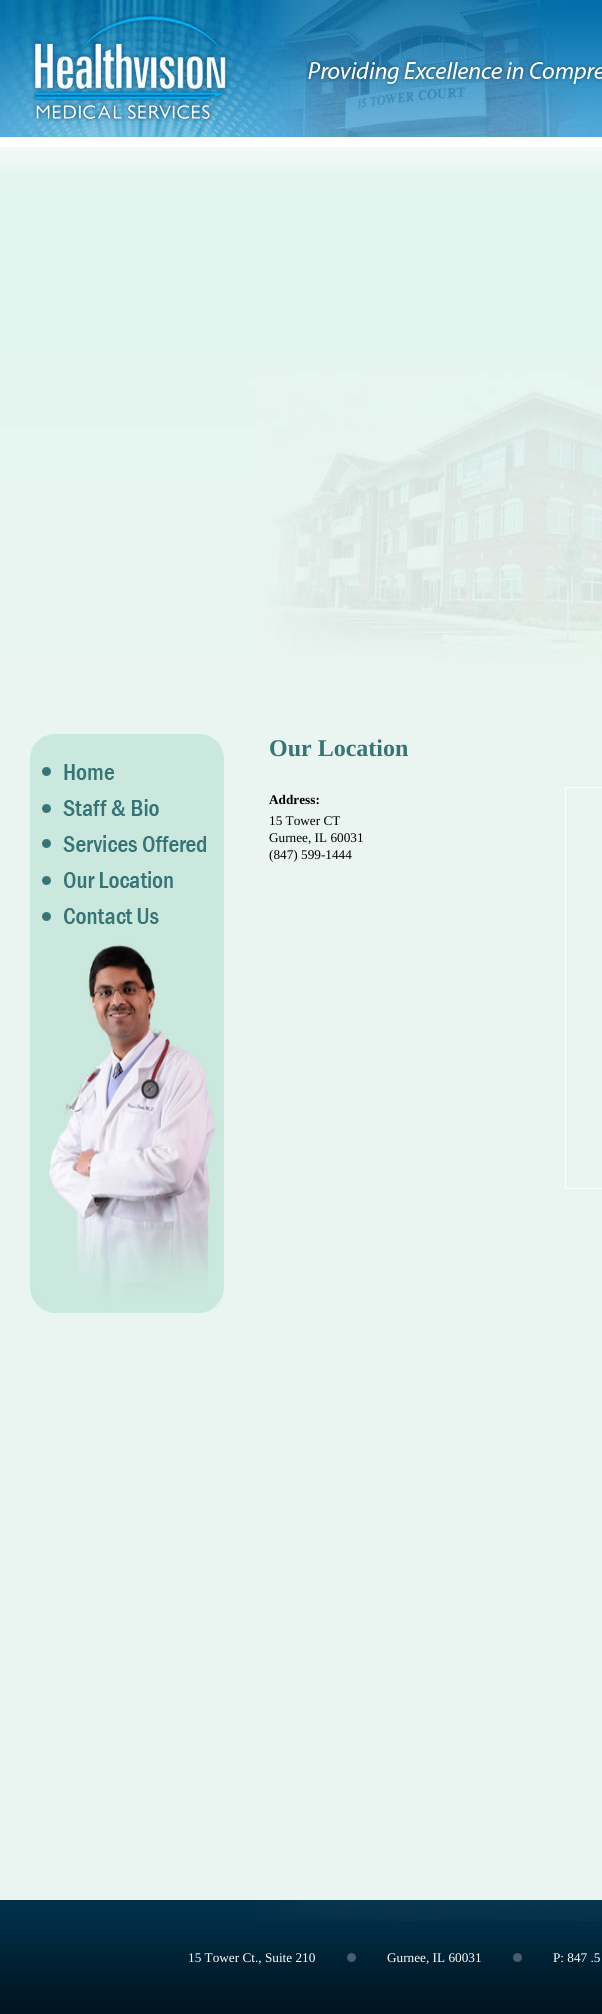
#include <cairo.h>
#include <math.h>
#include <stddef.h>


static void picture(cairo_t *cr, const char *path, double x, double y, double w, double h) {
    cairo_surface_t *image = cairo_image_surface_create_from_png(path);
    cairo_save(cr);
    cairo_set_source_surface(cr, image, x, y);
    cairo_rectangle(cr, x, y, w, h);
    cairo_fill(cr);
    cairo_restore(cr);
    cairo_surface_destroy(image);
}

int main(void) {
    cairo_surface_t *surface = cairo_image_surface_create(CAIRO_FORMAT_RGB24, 602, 2014);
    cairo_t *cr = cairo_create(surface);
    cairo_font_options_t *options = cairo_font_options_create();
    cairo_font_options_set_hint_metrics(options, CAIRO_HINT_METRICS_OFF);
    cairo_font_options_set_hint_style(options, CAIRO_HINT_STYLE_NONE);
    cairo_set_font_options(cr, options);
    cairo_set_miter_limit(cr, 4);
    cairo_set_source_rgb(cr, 1, 1, 1);
    cairo_paint(cr);
    picture(cr, "img1.png", 0, 0, 602, 137);
    picture(cr, "img2.png", 0, 147, 602, 1753);
    picture(cr, "img3.png", 30, 734, 194, 24);
    picture(cr, "img4.png", 30, 758, 194, 32);
    picture(cr, "img5.png", 30, 790, 194, 37);
    picture(cr, "img6.png", 30, 827, 194, 35);
    picture(cr, "img7.png", 30, 862, 194, 36);
    picture(cr, "img8.png", 30, 898, 194, 36);
    picture(cr, "img9.png", 30, 934, 194, 379);
    cairo_select_font_face(cr, "Liberation Serif", CAIRO_FONT_SLANT_NORMAL, CAIRO_FONT_WEIGHT_BOLD);
    cairo_set_font_size(cr, 24);
    cairo_set_source_rgb(cr, 0.216, 0.455, 0.459);
    cairo_move_to(cr, 269, 756);
    cairo_show_text(cr, "Our Location");
    cairo_set_font_size(cr, 13.25);
    cairo_set_source_rgb(cr, 0, 0, 0);
    cairo_move_to(cr, 269, 804);
    cairo_show_text(cr, "Address:");
    cairo_rectangle(cr, 565.5, 787.5, 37, 401);
    cairo_set_source_rgb(cr, 1, 1, 1);
    cairo_set_line_width(cr, 1);
    cairo_stroke(cr);
    cairo_select_font_face(cr, "Liberation Serif", CAIRO_FONT_SLANT_NORMAL, CAIRO_FONT_WEIGHT_NORMAL);
    cairo_set_source_rgb(cr, 0, 0, 0);
    cairo_move_to(cr, 269, 825);
    cairo_show_text(cr, "15 Tower CT");
    cairo_move_to(cr, 269, 842);
    cairo_show_text(cr, "Gurnee, IL 60031");
    cairo_move_to(cr, 269, 859);
    cairo_show_text(cr, "(847) 599-1444");
    picture(cr, "img10.png", 0, 1900, 602, 114);
    cairo_set_source_rgb(cr, 1, 1, 1);
    cairo_move_to(cr, 188, 1962);
    cairo_show_text(cr, "15 Tower Ct., Suite 210");
    picture(cr, "img11.png", 347, 1953, 9, 9);
    cairo_move_to(cr, 387, 1962);
    cairo_show_text(cr, "Gurnee, IL 60031");
    picture(cr, "img11.png", 513, 1953, 9, 9);
    cairo_move_to(cr, 553, 1962);
    cairo_show_text(cr, "P: 847 .5");
    cairo_surface_write_to_png(surface, "page.png");
    cairo_font_options_destroy(options);
    cairo_destroy(cr);
    cairo_surface_destroy(surface);
    return 0;
}
